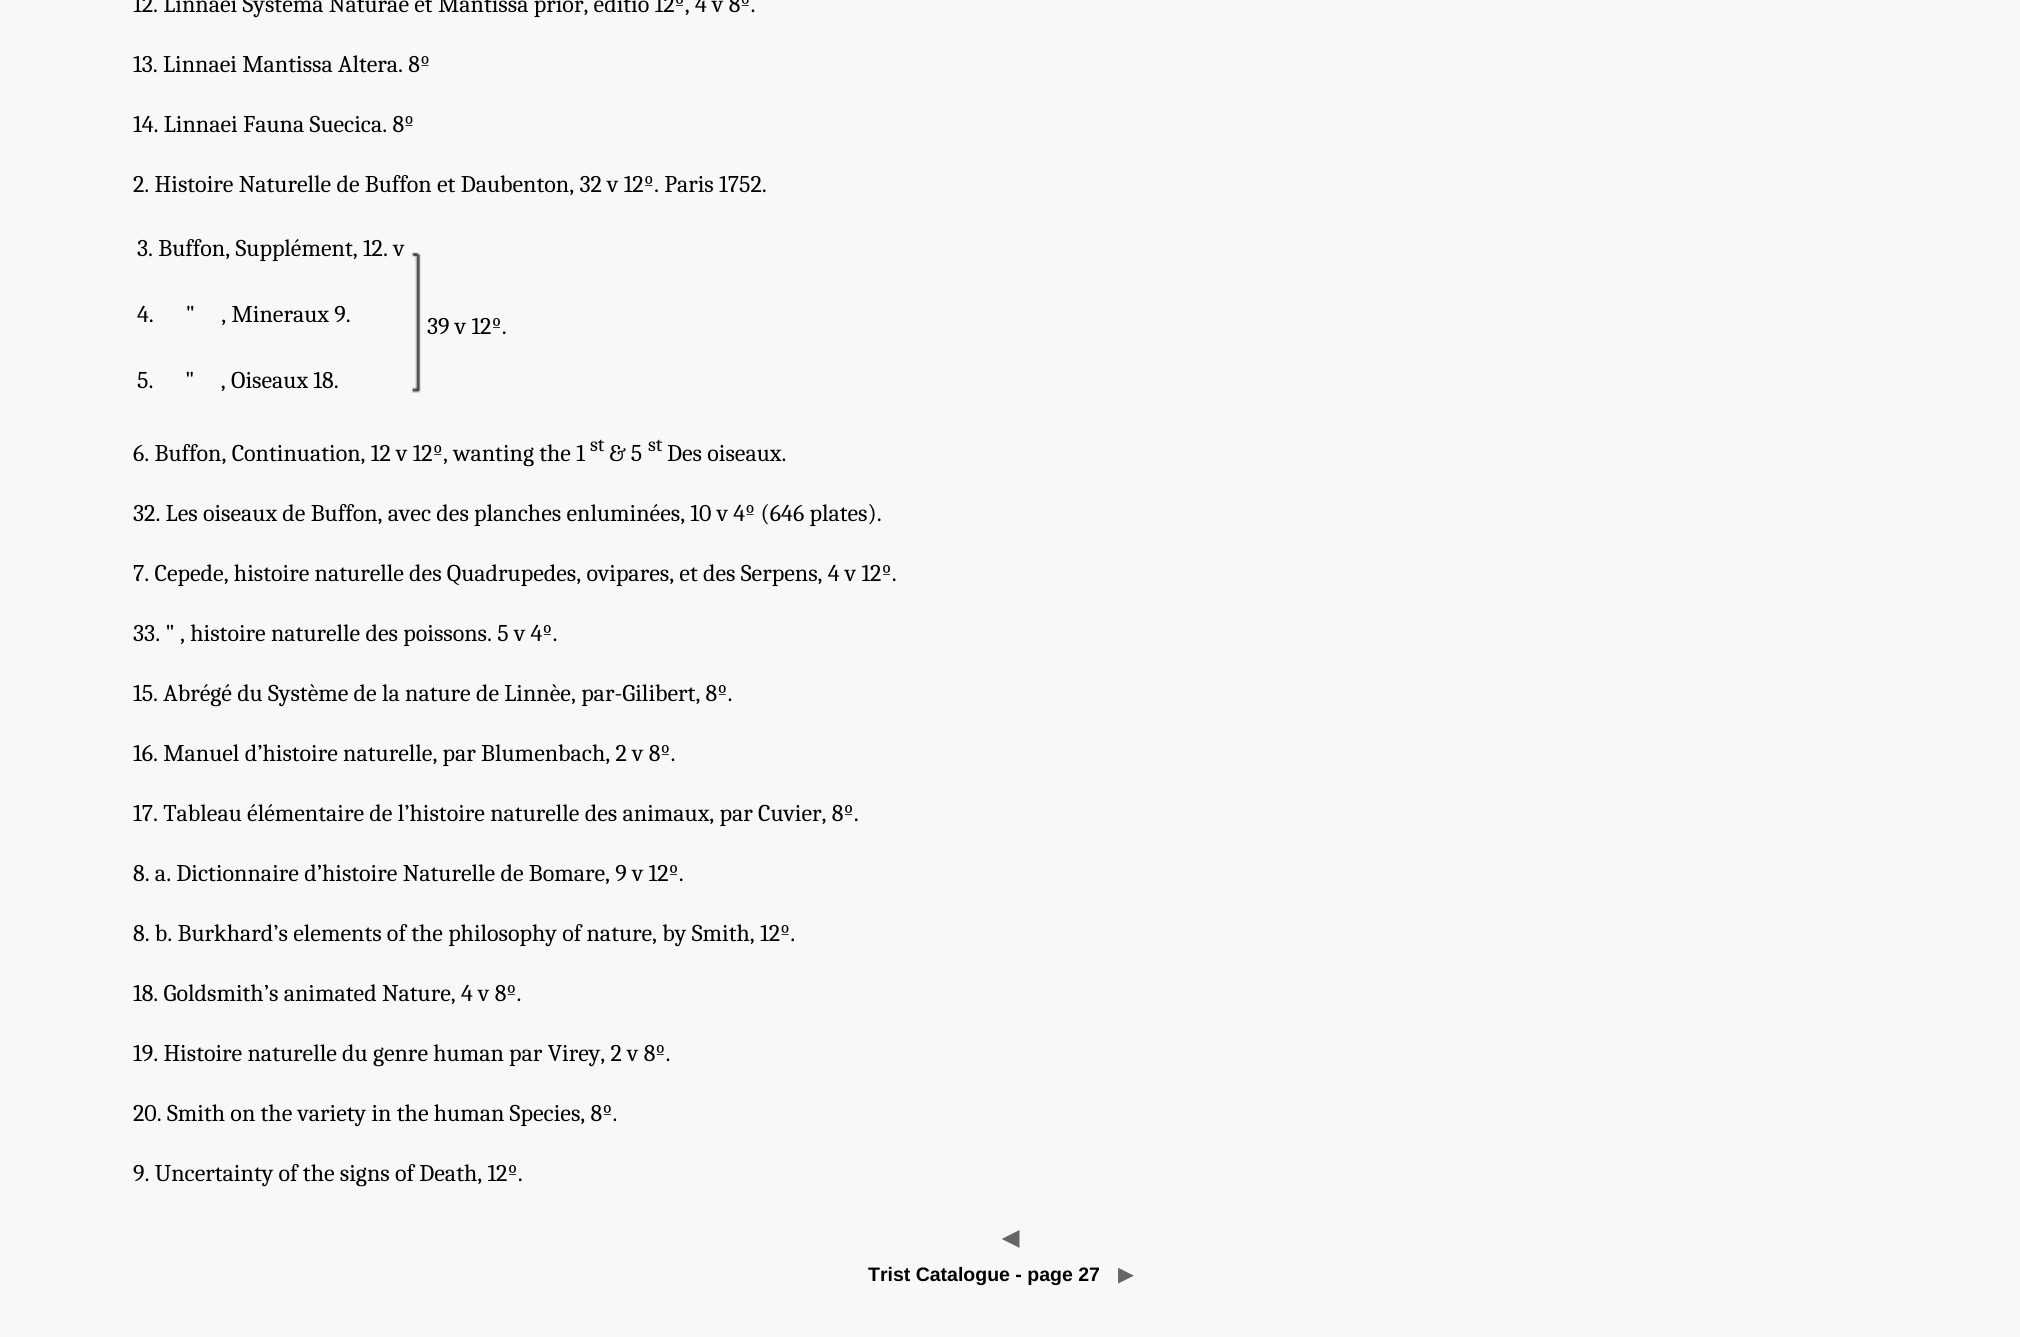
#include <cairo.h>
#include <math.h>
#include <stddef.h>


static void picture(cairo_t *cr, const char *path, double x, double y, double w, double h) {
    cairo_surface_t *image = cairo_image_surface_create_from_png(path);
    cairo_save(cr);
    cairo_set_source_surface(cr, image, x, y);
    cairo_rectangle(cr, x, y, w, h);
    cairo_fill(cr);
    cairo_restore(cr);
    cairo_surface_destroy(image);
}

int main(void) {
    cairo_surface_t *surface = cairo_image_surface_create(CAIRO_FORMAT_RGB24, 2020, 1337);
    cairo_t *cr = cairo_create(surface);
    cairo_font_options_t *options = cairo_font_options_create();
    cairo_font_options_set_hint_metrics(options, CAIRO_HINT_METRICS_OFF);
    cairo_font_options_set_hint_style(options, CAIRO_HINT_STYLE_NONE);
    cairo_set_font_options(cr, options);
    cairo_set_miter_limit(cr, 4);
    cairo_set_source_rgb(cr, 0.976, 0.969, 0.973);
    cairo_paint(cr);
    cairo_select_font_face(cr, "Caladea", CAIRO_FONT_SLANT_NORMAL, CAIRO_FONT_WEIGHT_NORMAL);
    cairo_set_font_size(cr, 24);
    cairo_set_source_rgb(cr, 0, 0, 0);
    cairo_move_to(cr, 133, 12);
    cairo_show_text(cr, "12. Linnaei Systema Naturae et Mantissa prior, editio 12º, 4 v 8º.");
    cairo_move_to(cr, 133, 72);
    cairo_show_text(cr, "13. Linnaei Mantissa Altera. 8º");
    cairo_move_to(cr, 133, 132);
    cairo_show_text(cr, "14. Linnaei Fauna Suecica. 8º");
    cairo_move_to(cr, 133, 192);
    cairo_show_text(cr, "2. Histoire Naturelle de Buffon et Daubenton, 32 v 12º. Paris 1752.");
    cairo_move_to(cr, 137, 256);
    cairo_show_text(cr, "3. Buffon, Supplément, 12. v");
    picture(cr, "img1.png", 411, 252, 10, 141);
    cairo_move_to(cr, 427, 334);
    cairo_show_text(cr, "39 v 12º.");
    cairo_move_to(cr, 137, 322);
    cairo_show_text(cr, "4.      \"     , Mineraux 9.");
    cairo_move_to(cr, 137, 388);
    cairo_show_text(cr, "5.      \"     , Oiseaux 18.");
    cairo_move_to(cr, 133, 461);
    cairo_show_text(cr, "6. Buffon, Continuation, 12 v 12º, wanting the 1");
    cairo_set_font_size(cr, 20);
    cairo_move_to(cr, 590, 451);
    cairo_show_text(cr, "st");
    cairo_set_font_size(cr, 24);
    cairo_move_to(cr, 609, 461);
    cairo_show_text(cr, "& 5");
    cairo_set_font_size(cr, 20);
    cairo_move_to(cr, 648, 451);
    cairo_show_text(cr, "st");
    cairo_set_font_size(cr, 24);
    cairo_move_to(cr, 667, 461);
    cairo_show_text(cr, "Des oiseaux.");
    cairo_move_to(cr, 133, 521);
    cairo_show_text(cr, "32. Les oiseaux de Buffon, avec des planches enluminées, 10 v 4º (646 plates).");
    cairo_move_to(cr, 133, 581);
    cairo_show_text(cr, "7. Cepede, histoire naturelle des Quadrupedes, ovipares, et des Serpens, 4 v 12º.");
    cairo_move_to(cr, 133, 641);
    cairo_show_text(cr, "33. \" , histoire naturelle des poissons. 5 v 4º.");
    cairo_move_to(cr, 133, 701);
    cairo_show_text(cr, "15. Abrégé du Système de la nature de Linnèe, par-Gilibert, 8º.");
    cairo_move_to(cr, 133, 761);
    cairo_show_text(cr, "16. Manuel d’histoire naturelle, par Blumenbach, 2 v 8º.");
    cairo_move_to(cr, 133, 821);
    cairo_show_text(cr, "17. Tableau élémentaire de l’histoire naturelle des animaux, par Cuvier, 8º.");
    cairo_move_to(cr, 133, 881);
    cairo_show_text(cr, "8. a. Dictionnaire d’histoire Naturelle de Bomare, 9 v 12º.");
    cairo_move_to(cr, 133, 941);
    cairo_show_text(cr, "8. b. Burkhard’s elements of the philosophy of nature, by Smith, 12º.");
    cairo_move_to(cr, 133, 1001);
    cairo_show_text(cr, "18. Goldsmith’s animated Nature, 4 v 8º.");
    cairo_move_to(cr, 133, 1061);
    cairo_show_text(cr, "19. Histoire naturelle du genre human par Virey, 2 v 8º.");
    cairo_move_to(cr, 133, 1121);
    cairo_show_text(cr, "20. Smith on the variety in the human Species, 8º.");
    cairo_move_to(cr, 133, 1181);
    cairo_show_text(cr, "9. Uncertainty of the signs of Death, 12º.");
    cairo_select_font_face(cr, "DejaVu Sans", CAIRO_FONT_SLANT_NORMAL, CAIRO_FONT_WEIGHT_BOLD);
    cairo_set_font_size(cr, 22);
    cairo_set_source_rgb(cr, 0.4, 0.4, 0.4);
    cairo_move_to(cr, 1002, 1245);
    cairo_show_text(cr, "◀");
    cairo_select_font_face(cr, "Liberation Sans", CAIRO_FONT_SLANT_NORMAL, CAIRO_FONT_WEIGHT_BOLD);
    cairo_set_font_size(cr, 19.5);
    cairo_set_source_rgb(cr, 0, 0, 0);
    cairo_move_to(cr, 868, 1281);
    cairo_show_text(cr, "Trist Catalogue - page 27");
    cairo_select_font_face(cr, "DejaVu Sans", CAIRO_FONT_SLANT_NORMAL, CAIRO_FONT_WEIGHT_BOLD);
    cairo_set_source_rgb(cr, 0.4, 0.4, 0.4);
    cairo_move_to(cr, 1118, 1281);
    cairo_show_text(cr, "▶");
    cairo_surface_write_to_png(surface, "page.png");
    cairo_font_options_destroy(options);
    cairo_destroy(cr);
    cairo_surface_destroy(surface);
    return 0;
}
